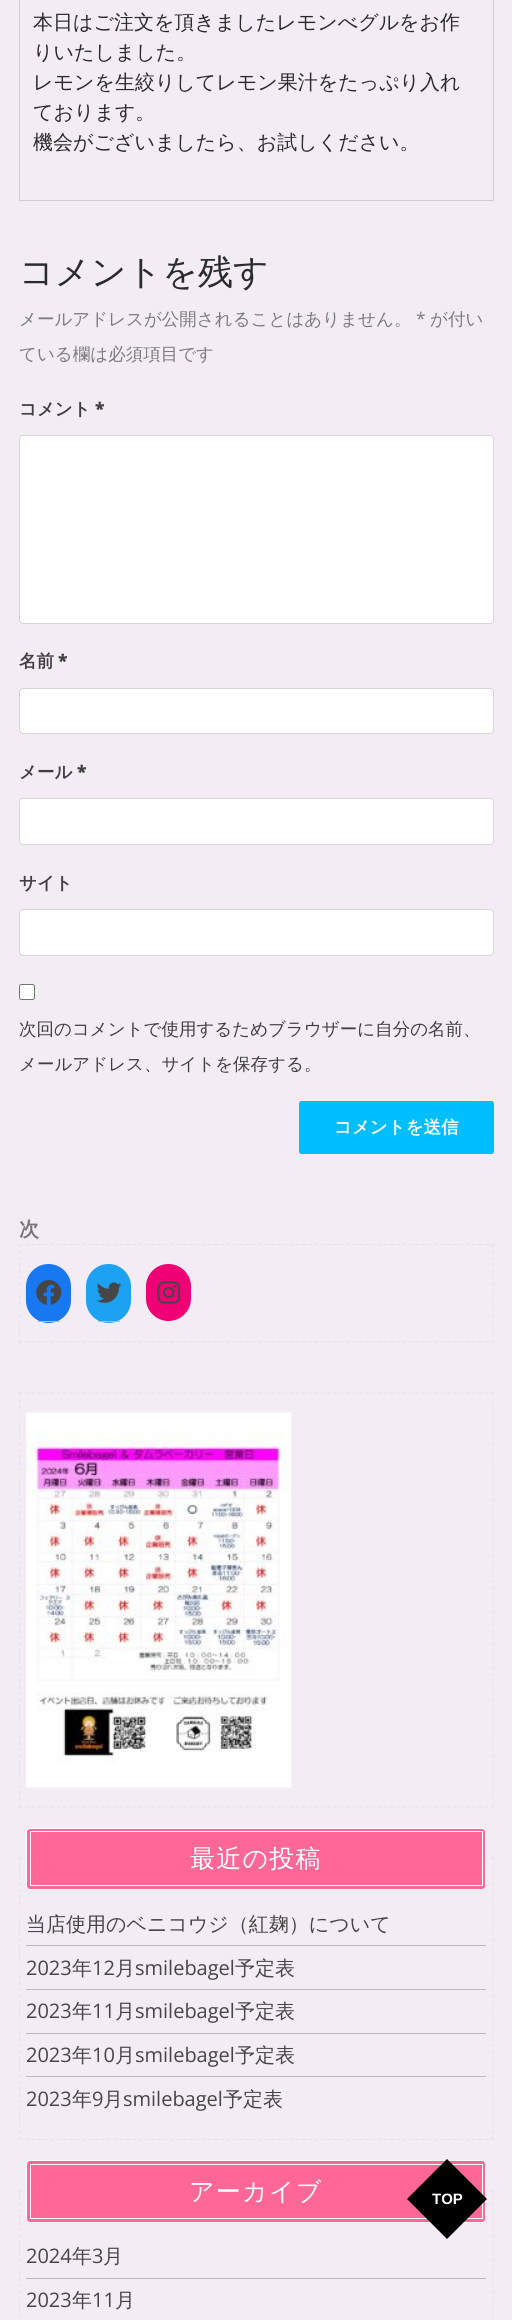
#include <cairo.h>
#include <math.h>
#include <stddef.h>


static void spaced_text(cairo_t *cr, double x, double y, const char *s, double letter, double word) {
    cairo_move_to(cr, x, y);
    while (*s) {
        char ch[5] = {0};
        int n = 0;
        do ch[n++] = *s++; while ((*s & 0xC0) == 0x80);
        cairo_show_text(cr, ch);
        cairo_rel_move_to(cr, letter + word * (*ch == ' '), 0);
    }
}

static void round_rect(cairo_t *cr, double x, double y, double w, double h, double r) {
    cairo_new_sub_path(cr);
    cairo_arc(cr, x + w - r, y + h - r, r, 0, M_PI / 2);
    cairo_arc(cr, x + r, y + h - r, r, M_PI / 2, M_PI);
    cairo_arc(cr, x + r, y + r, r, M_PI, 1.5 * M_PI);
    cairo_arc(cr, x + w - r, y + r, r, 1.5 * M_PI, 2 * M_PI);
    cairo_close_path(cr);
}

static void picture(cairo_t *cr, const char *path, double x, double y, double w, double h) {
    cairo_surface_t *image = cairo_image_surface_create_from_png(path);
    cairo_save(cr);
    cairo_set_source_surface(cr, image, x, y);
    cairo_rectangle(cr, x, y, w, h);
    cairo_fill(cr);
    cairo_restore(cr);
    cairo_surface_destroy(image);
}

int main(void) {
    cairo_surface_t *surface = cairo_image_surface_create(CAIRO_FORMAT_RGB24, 512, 2320);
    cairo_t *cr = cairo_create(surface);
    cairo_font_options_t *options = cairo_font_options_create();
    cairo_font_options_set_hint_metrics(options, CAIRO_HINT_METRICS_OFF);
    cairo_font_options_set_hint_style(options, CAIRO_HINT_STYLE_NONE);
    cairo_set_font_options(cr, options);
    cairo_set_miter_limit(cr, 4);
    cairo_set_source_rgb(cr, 0.957, 0.922, 0.957);
    cairo_paint(cr);
    cairo_rectangle(cr, 19.5, -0.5, 474, 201);
    cairo_set_source_rgb(cr, 0.804, 0.804, 0.804);
    cairo_set_line_width(cr, 1);
    cairo_stroke(cr);
    cairo_select_font_face(cr, "WenQuanYi Zen Hei Medium", CAIRO_FONT_SLANT_NORMAL, CAIRO_FONT_WEIGHT_NORMAL);
    cairo_set_font_size(cr, 20);
    cairo_set_source_rgb(cr, 0.161, 0.169, 0.173);
    cairo_move_to(cr, 33, 29);
    cairo_show_text(cr, "本日はご注文を頂きましたレモンべグルをお作");
    cairo_move_to(cr, 33, 59);
    cairo_show_text(cr, "りいたしました。");
    cairo_move_to(cr, 33, 89);
    cairo_show_text(cr, "レモンを生絞りしてレモン果汁をたっぷり入れ");
    cairo_move_to(cr, 33, 119);
    cairo_show_text(cr, "ております。");
    cairo_move_to(cr, 33, 149);
    cairo_show_text(cr, "機会がございましたら、お試しください。");
    cairo_set_font_size(cr, 35);
    cairo_move_to(cr, 19, 284);
    cairo_show_text(cr, "コメントを残す");
    cairo_set_font_size(cr, 17.5);
    cairo_set_source_rgb(cr, 0.475, 0.486, 0.49);
    cairo_move_to(cr, 19, 325);
    cairo_show_text(cr, "メールアドレスが公開されることはありません。");
    cairo_select_font_face(cr, "Open Sans", CAIRO_FONT_SLANT_NORMAL, CAIRO_FONT_WEIGHT_NORMAL);
    cairo_move_to(cr, 416, 325);
    cairo_show_text(cr, "*");
    cairo_select_font_face(cr, "WenQuanYi Zen Hei Medium", CAIRO_FONT_SLANT_NORMAL, CAIRO_FONT_WEIGHT_NORMAL);
    cairo_move_to(cr, 430, 325);
    cairo_show_text(cr, "が付い");
    cairo_move_to(cr, 19, 360);
    cairo_show_text(cr, "ている欄は必須項目です");
    cairo_select_font_face(cr, "WenQuanYi Zen Hei", CAIRO_FONT_SLANT_NORMAL, CAIRO_FONT_WEIGHT_BOLD);
    cairo_set_source_rgb(cr, 0.247, 0.247, 0.247);
    cairo_move_to(cr, 19, 415);
    cairo_show_text(cr, "コメント");
    cairo_select_font_face(cr, "Open Sans ExtraBold", CAIRO_FONT_SLANT_NORMAL, CAIRO_FONT_WEIGHT_NORMAL);
    cairo_move_to(cr, 95, 415);
    cairo_show_text(cr, "*");
    cairo_set_source_rgb(cr, 1, 1, 1);
    round_rect(cr, 19.5, 435.5, 474, 188, 3.5);
    cairo_fill_preserve(cr);
    cairo_set_source_rgb(cr, 0.843, 0.843, 0.843);
    cairo_stroke(cr);
    cairo_select_font_face(cr, "WenQuanYi Zen Hei", CAIRO_FONT_SLANT_NORMAL, CAIRO_FONT_WEIGHT_BOLD);
    cairo_set_source_rgb(cr, 0.247, 0.247, 0.247);
    cairo_move_to(cr, 19, 667);
    cairo_show_text(cr, "名前");
    cairo_select_font_face(cr, "Open Sans ExtraBold", CAIRO_FONT_SLANT_NORMAL, CAIRO_FONT_WEIGHT_NORMAL);
    cairo_move_to(cr, 58, 667);
    cairo_show_text(cr, "*");
    cairo_set_source_rgb(cr, 1, 1, 1);
    round_rect(cr, 19.5, 688.5, 474, 45, 3.5);
    cairo_fill_preserve(cr);
    cairo_set_source_rgb(cr, 0.843, 0.843, 0.843);
    cairo_stroke(cr);
    cairo_select_font_face(cr, "WenQuanYi Zen Hei", CAIRO_FONT_SLANT_NORMAL, CAIRO_FONT_WEIGHT_BOLD);
    cairo_set_source_rgb(cr, 0.247, 0.247, 0.247);
    cairo_move_to(cr, 19, 778);
    cairo_show_text(cr, "メール");
    cairo_select_font_face(cr, "Open Sans ExtraBold", CAIRO_FONT_SLANT_NORMAL, CAIRO_FONT_WEIGHT_NORMAL);
    cairo_move_to(cr, 77, 778);
    cairo_show_text(cr, "*");
    cairo_set_source_rgb(cr, 1, 1, 1);
    round_rect(cr, 19.5, 798.5, 474, 46, 3.5);
    cairo_fill_preserve(cr);
    cairo_set_source_rgb(cr, 0.843, 0.843, 0.843);
    cairo_stroke(cr);
    cairo_select_font_face(cr, "WenQuanYi Zen Hei", CAIRO_FONT_SLANT_NORMAL, CAIRO_FONT_WEIGHT_BOLD);
    cairo_set_source_rgb(cr, 0.247, 0.247, 0.247);
    cairo_move_to(cr, 19, 889);
    cairo_show_text(cr, "サイト");
    cairo_set_source_rgb(cr, 1, 1, 1);
    round_rect(cr, 19.5, 909.5, 474, 46, 3.5);
    cairo_fill_preserve(cr);
    cairo_set_source_rgb(cr, 0.843, 0.843, 0.843);
    cairo_stroke(cr);
    cairo_set_source_rgb(cr, 1, 1, 1);
    round_rect(cr, 19.5, 984.5, 15, 15, 2);
    cairo_fill_preserve(cr);
    cairo_set_source_rgb(cr, 0.463, 0.463, 0.463);
    cairo_stroke(cr);
    cairo_select_font_face(cr, "WenQuanYi Zen Hei Medium", CAIRO_FONT_SLANT_NORMAL, CAIRO_FONT_WEIGHT_NORMAL);
    cairo_set_source_rgb(cr, 0.247, 0.247, 0.247);
    cairo_move_to(cr, 19, 1035);
    cairo_show_text(cr, "次回のコメントで使用するためブラウザーに自分の名前、");
    cairo_move_to(cr, 19, 1070);
    cairo_show_text(cr, "メールアドレス、サイトを保存する。");
    cairo_set_source_rgb(cr, 0.004, 0.745, 1);
    round_rect(cr, 299, 1101, 195, 53, 2.5);
    cairo_fill(cr);
    cairo_select_font_face(cr, "WenQuanYi Zen Hei", CAIRO_FONT_SLANT_NORMAL, CAIRO_FONT_WEIGHT_BOLD);
    cairo_set_source_rgb(cr, 1, 1, 1);
    cairo_move_to(cr, 334, 1133);
    cairo_show_text(cr, "コメントを送信");
    cairo_set_font_size(cr, 20);
    cairo_set_source_rgb(cr, 0.463, 0.463, 0.463);
    cairo_move_to(cr, 19, 1236);
    cairo_show_text(cr, "次");
    cairo_new_path(cr);
    cairo_move_to(cr, 19, 1244.5);
    cairo_line_to(cr, 494, 1244.5);
    cairo_set_source_rgb(cr, 0.894, 0.894, 0.894);
    cairo_set_line_width(cr, 1.2);
    cairo_set_dash(cr, (double[]){3.75, 2.54}, 2, 0);
    cairo_stroke(cr);
    cairo_new_path(cr);
    cairo_move_to(cr, 493, 1244);
    cairo_line_to(cr, 493, 1342.5);
    cairo_set_dash(cr, (double[]){3.75, 2.59}, 2, 0);
    cairo_stroke(cr);
    cairo_new_path(cr);
    cairo_move_to(cr, 19, 1342);
    cairo_line_to(cr, 494, 1342);
    cairo_set_dash(cr, (double[]){3.75, 2.54}, 2, 0);
    cairo_stroke(cr);
    cairo_new_path(cr);
    cairo_move_to(cr, 19.5, 1244);
    cairo_line_to(cr, 19.5, 1342.5);
    cairo_set_dash(cr, (double[]){3.75, 2.59}, 2, 0);
    cairo_stroke(cr);
    cairo_set_source_rgb(cr, 0.09, 0.471, 0.949);
    round_rect(cr, 26, 1264, 45, 59, 22.5);
    cairo_fill(cr);
    cairo_set_source_rgb(cr, 0.733, 0.733, 0.733);
    cairo_rectangle(cr, 38, 1321, 22, 1);
    cairo_fill(cr);
    picture(cr, "img1.png", 36, 1280, 26, 25);
    cairo_set_source_rgb(cr, 0.114, 0.631, 0.949);
    round_rect(cr, 86, 1264, 45, 59, 22.5);
    cairo_fill(cr);
    cairo_set_source_rgb(cr, 0.733, 0.733, 0.733);
    cairo_rectangle(cr, 98, 1321, 22, 1);
    cairo_fill(cr);
    picture(cr, "img2.png", 96, 1282, 26, 21);
    cairo_set_source_rgb(cr, 0.941, 0, 0.459);
    round_rect(cr, 146, 1264, 45, 57, 22.5);
    cairo_fill(cr);
    picture(cr, "img3.png", 157, 1281, 23, 23);
    cairo_new_path(cr);
    cairo_move_to(cr, 19, 1393);
    cairo_line_to(cr, 494, 1393);
    cairo_set_source_rgb(cr, 0.894, 0.894, 0.894);
    cairo_set_dash(cr, (double[]){3.75, 2.54}, 2, 0);
    cairo_stroke(cr);
    cairo_new_path(cr);
    cairo_move_to(cr, 493, 1392.5);
    cairo_line_to(cr, 493, 1807.5);
    cairo_set_dash(cr, (double[]){3.75, 2.48}, 2, 0);
    cairo_stroke(cr);
    cairo_new_path(cr);
    cairo_move_to(cr, 19, 1807);
    cairo_line_to(cr, 494, 1807);
    cairo_set_dash(cr, (double[]){3.75, 2.54}, 2, 0);
    cairo_stroke(cr);
    cairo_new_path(cr);
    cairo_move_to(cr, 19.5, 1392.5);
    cairo_line_to(cr, 19.5, 1807.5);
    cairo_set_dash(cr, (double[]){3.75, 2.48}, 2, 0);
    cairo_stroke(cr);
    picture(cr, "img4.png", 26, 1412, 266, 376);
    cairo_new_path(cr);
    cairo_move_to(cr, 19, 1858);
    cairo_line_to(cr, 494, 1858);
    cairo_set_dash(cr, (double[]){3.75, 2.54}, 2, 0);
    cairo_stroke(cr);
    cairo_new_path(cr);
    cairo_move_to(cr, 493, 1857.5);
    cairo_line_to(cr, 493, 2140);
    cairo_set_dash(cr, (double[]){3.75, 2.45}, 2, 0);
    cairo_stroke(cr);
    cairo_new_path(cr);
    cairo_move_to(cr, 19, 2139.5);
    cairo_line_to(cr, 494, 2139.5);
    cairo_set_dash(cr, (double[]){3.75, 2.54}, 2, 0);
    cairo_stroke(cr);
    cairo_new_path(cr);
    cairo_move_to(cr, 19.5, 1857.5);
    cairo_line_to(cr, 19.5, 2140);
    cairo_set_dash(cr, (double[]){3.75, 2.45}, 2, 0);
    cairo_stroke(cr);
    cairo_set_source_rgb(cr, 1, 0.404, 0.588);
    round_rect(cr, 26.5, 1828.5, 459, 61, 3.5);
    cairo_fill_preserve(cr);
    cairo_set_source_rgb(cr, 1, 1, 1);
    cairo_set_line_width(cr, 1);
    cairo_set_dash(cr, NULL, 0, 0);
    cairo_stroke(cr);
    cairo_rectangle(cr, 30.5, 1831.5, 452, 54);
    cairo_stroke(cr);
    cairo_select_font_face(cr, "WenQuanYi Zen Hei Medium", CAIRO_FONT_SLANT_NORMAL, CAIRO_FONT_WEIGHT_NORMAL);
    cairo_set_font_size(cr, 25);
    spaced_text(cr, 190, 1867, "最近の投稿", 1.25, 0);
    cairo_set_source_rgb(cr, 0.733, 0.733, 0.733);
    cairo_rectangle(cr, 26, 1945, 460, 1);
    cairo_fill(cr);
    cairo_set_font_size(cr, 20);
    cairo_set_source_rgb(cr, 0.275, 0.275, 0.275);
    cairo_move_to(cr, 26, 1931);
    cairo_show_text(cr, "当店使用のベニコウジ（紅麹）について");
    cairo_set_source_rgb(cr, 0.733, 0.733, 0.733);
    cairo_rectangle(cr, 26, 1989, 460, 1);
    cairo_fill(cr);
    cairo_select_font_face(cr, "Open Sans", CAIRO_FONT_SLANT_NORMAL, CAIRO_FONT_WEIGHT_NORMAL);
    cairo_set_source_rgb(cr, 0.275, 0.275, 0.275);
    cairo_move_to(cr, 26, 1975);
    cairo_show_text(cr, "2023");
    cairo_select_font_face(cr, "WenQuanYi Zen Hei Medium", CAIRO_FONT_SLANT_NORMAL, CAIRO_FONT_WEIGHT_NORMAL);
    cairo_move_to(cr, 72, 1975);
    cairo_show_text(cr, "年");
    cairo_select_font_face(cr, "Open Sans", CAIRO_FONT_SLANT_NORMAL, CAIRO_FONT_WEIGHT_NORMAL);
    cairo_move_to(cr, 92, 1975);
    cairo_show_text(cr, "12");
    cairo_select_font_face(cr, "WenQuanYi Zen Hei Medium", CAIRO_FONT_SLANT_NORMAL, CAIRO_FONT_WEIGHT_NORMAL);
    cairo_move_to(cr, 115, 1975);
    cairo_show_text(cr, "月");
    cairo_select_font_face(cr, "Open Sans", CAIRO_FONT_SLANT_NORMAL, CAIRO_FONT_WEIGHT_NORMAL);
    cairo_move_to(cr, 135, 1975);
    cairo_show_text(cr, "smilebagel");
    cairo_select_font_face(cr, "WenQuanYi Zen Hei Medium", CAIRO_FONT_SLANT_NORMAL, CAIRO_FONT_WEIGHT_NORMAL);
    cairo_move_to(cr, 235, 1975);
    cairo_show_text(cr, "予定表");
    cairo_set_source_rgb(cr, 0.733, 0.733, 0.733);
    cairo_rectangle(cr, 26, 2033, 460, 1);
    cairo_fill(cr);
    cairo_select_font_face(cr, "Open Sans", CAIRO_FONT_SLANT_NORMAL, CAIRO_FONT_WEIGHT_NORMAL);
    cairo_set_source_rgb(cr, 0.275, 0.275, 0.275);
    cairo_move_to(cr, 26, 2018);
    cairo_show_text(cr, "2023");
    cairo_select_font_face(cr, "WenQuanYi Zen Hei Medium", CAIRO_FONT_SLANT_NORMAL, CAIRO_FONT_WEIGHT_NORMAL);
    cairo_move_to(cr, 72, 2018);
    cairo_show_text(cr, "年");
    cairo_select_font_face(cr, "Open Sans", CAIRO_FONT_SLANT_NORMAL, CAIRO_FONT_WEIGHT_NORMAL);
    cairo_move_to(cr, 92, 2018);
    cairo_show_text(cr, "11");
    cairo_select_font_face(cr, "WenQuanYi Zen Hei Medium", CAIRO_FONT_SLANT_NORMAL, CAIRO_FONT_WEIGHT_NORMAL);
    cairo_move_to(cr, 115, 2018);
    cairo_show_text(cr, "月");
    cairo_select_font_face(cr, "Open Sans", CAIRO_FONT_SLANT_NORMAL, CAIRO_FONT_WEIGHT_NORMAL);
    cairo_move_to(cr, 135, 2018);
    cairo_show_text(cr, "smilebagel");
    cairo_select_font_face(cr, "WenQuanYi Zen Hei Medium", CAIRO_FONT_SLANT_NORMAL, CAIRO_FONT_WEIGHT_NORMAL);
    cairo_move_to(cr, 235, 2018);
    cairo_show_text(cr, "予定表");
    cairo_set_source_rgb(cr, 0.733, 0.733, 0.733);
    cairo_rectangle(cr, 26, 2076, 460, 1);
    cairo_fill(cr);
    cairo_select_font_face(cr, "Open Sans", CAIRO_FONT_SLANT_NORMAL, CAIRO_FONT_WEIGHT_NORMAL);
    cairo_set_source_rgb(cr, 0.275, 0.275, 0.275);
    cairo_move_to(cr, 26, 2062);
    cairo_show_text(cr, "2023");
    cairo_select_font_face(cr, "WenQuanYi Zen Hei Medium", CAIRO_FONT_SLANT_NORMAL, CAIRO_FONT_WEIGHT_NORMAL);
    cairo_move_to(cr, 72, 2062);
    cairo_show_text(cr, "年");
    cairo_select_font_face(cr, "Open Sans", CAIRO_FONT_SLANT_NORMAL, CAIRO_FONT_WEIGHT_NORMAL);
    cairo_move_to(cr, 92, 2062);
    cairo_show_text(cr, "10");
    cairo_select_font_face(cr, "WenQuanYi Zen Hei Medium", CAIRO_FONT_SLANT_NORMAL, CAIRO_FONT_WEIGHT_NORMAL);
    cairo_move_to(cr, 115, 2062);
    cairo_show_text(cr, "月");
    cairo_select_font_face(cr, "Open Sans", CAIRO_FONT_SLANT_NORMAL, CAIRO_FONT_WEIGHT_NORMAL);
    cairo_move_to(cr, 135, 2062);
    cairo_show_text(cr, "smilebagel");
    cairo_select_font_face(cr, "WenQuanYi Zen Hei Medium", CAIRO_FONT_SLANT_NORMAL, CAIRO_FONT_WEIGHT_NORMAL);
    cairo_move_to(cr, 235, 2062);
    cairo_show_text(cr, "予定表");
    cairo_select_font_face(cr, "Open Sans", CAIRO_FONT_SLANT_NORMAL, CAIRO_FONT_WEIGHT_NORMAL);
    cairo_move_to(cr, 26, 2106);
    cairo_show_text(cr, "2023");
    cairo_select_font_face(cr, "WenQuanYi Zen Hei Medium", CAIRO_FONT_SLANT_NORMAL, CAIRO_FONT_WEIGHT_NORMAL);
    cairo_move_to(cr, 72, 2106);
    cairo_show_text(cr, "年");
    cairo_select_font_face(cr, "Open Sans", CAIRO_FONT_SLANT_NORMAL, CAIRO_FONT_WEIGHT_NORMAL);
    cairo_move_to(cr, 92, 2106);
    cairo_show_text(cr, "9");
    cairo_select_font_face(cr, "WenQuanYi Zen Hei Medium", CAIRO_FONT_SLANT_NORMAL, CAIRO_FONT_WEIGHT_NORMAL);
    cairo_move_to(cr, 103, 2106);
    cairo_show_text(cr, "月");
    cairo_select_font_face(cr, "Open Sans", CAIRO_FONT_SLANT_NORMAL, CAIRO_FONT_WEIGHT_NORMAL);
    cairo_move_to(cr, 123, 2106);
    cairo_show_text(cr, "smilebagel");
    cairo_select_font_face(cr, "WenQuanYi Zen Hei Medium", CAIRO_FONT_SLANT_NORMAL, CAIRO_FONT_WEIGHT_NORMAL);
    cairo_move_to(cr, 223, 2106);
    cairo_show_text(cr, "予定表");
    cairo_new_path(cr);
    cairo_move_to(cr, 19, 2190.5);
    cairo_line_to(cr, 494, 2190.5);
    cairo_set_source_rgb(cr, 0.894, 0.894, 0.894);
    cairo_set_line_width(cr, 1.2);
    cairo_set_dash(cr, (double[]){3.75, 2.54}, 2, 0);
    cairo_stroke(cr);
    cairo_new_path(cr);
    cairo_move_to(cr, 493, 2190);
    cairo_line_to(cr, 493, 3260);
    cairo_set_dash(cr, (double[]){3.75, 2.49}, 2, 0);
    cairo_stroke(cr);
    cairo_new_path(cr);
    cairo_move_to(cr, 19.5, 2190);
    cairo_line_to(cr, 19.5, 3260);
    cairo_stroke(cr);
    cairo_set_source_rgb(cr, 1, 0.404, 0.588);
    round_rect(cr, 26.5, 2160.5, 459, 62, 3.5);
    cairo_fill_preserve(cr);
    cairo_set_source_rgb(cr, 1, 1, 1);
    cairo_set_line_width(cr, 1);
    cairo_set_dash(cr, NULL, 0, 0);
    cairo_stroke(cr);
    cairo_rectangle(cr, 30.5, 2164.5, 452, 54);
    cairo_stroke(cr);
    cairo_set_font_size(cr, 25);
    spaced_text(cr, 189, 2200, "アーカイブ", 1.25, 0);
    cairo_set_source_rgb(cr, 0.733, 0.733, 0.733);
    cairo_rectangle(cr, 26, 2278, 460, 1);
    cairo_fill(cr);
    cairo_select_font_face(cr, "Open Sans", CAIRO_FONT_SLANT_NORMAL, CAIRO_FONT_WEIGHT_NORMAL);
    cairo_set_font_size(cr, 20);
    cairo_set_source_rgb(cr, 0.275, 0.275, 0.275);
    cairo_move_to(cr, 26, 2263);
    cairo_show_text(cr, "2024");
    cairo_select_font_face(cr, "WenQuanYi Zen Hei Medium", CAIRO_FONT_SLANT_NORMAL, CAIRO_FONT_WEIGHT_NORMAL);
    cairo_move_to(cr, 72, 2263);
    cairo_show_text(cr, "年");
    cairo_select_font_face(cr, "Open Sans", CAIRO_FONT_SLANT_NORMAL, CAIRO_FONT_WEIGHT_NORMAL);
    cairo_move_to(cr, 92, 2263);
    cairo_show_text(cr, "3");
    cairo_select_font_face(cr, "WenQuanYi Zen Hei Medium", CAIRO_FONT_SLANT_NORMAL, CAIRO_FONT_WEIGHT_NORMAL);
    cairo_move_to(cr, 103, 2263);
    cairo_show_text(cr, "月");
    cairo_select_font_face(cr, "Open Sans", CAIRO_FONT_SLANT_NORMAL, CAIRO_FONT_WEIGHT_NORMAL);
    cairo_move_to(cr, 26, 2307);
    cairo_show_text(cr, "2023");
    cairo_select_font_face(cr, "WenQuanYi Zen Hei Medium", CAIRO_FONT_SLANT_NORMAL, CAIRO_FONT_WEIGHT_NORMAL);
    cairo_move_to(cr, 72, 2307);
    cairo_show_text(cr, "年");
    cairo_select_font_face(cr, "Open Sans", CAIRO_FONT_SLANT_NORMAL, CAIRO_FONT_WEIGHT_NORMAL);
    cairo_move_to(cr, 92, 2307);
    cairo_show_text(cr, "11");
    cairo_select_font_face(cr, "WenQuanYi Zen Hei Medium", CAIRO_FONT_SLANT_NORMAL, CAIRO_FONT_WEIGHT_NORMAL);
    cairo_move_to(cr, 115, 2307);
    cairo_show_text(cr, "月");
    cairo_set_source_rgb(cr, 0, 0, 0);
    cairo_new_path(cr);
    cairo_move_to(cr, 407, 2199);
    cairo_line_to(cr, 447, 2159);
    cairo_line_to(cr, 487, 2199);
    cairo_line_to(cr, 447, 2239);
    cairo_close_path(cr);
    cairo_fill(cr);
    cairo_select_font_face(cr, "Liberation Sans", CAIRO_FONT_SLANT_NORMAL, CAIRO_FONT_WEIGHT_BOLD);
    cairo_set_font_size(cr, 15);
    cairo_set_source_rgb(cr, 1, 1, 1);
    cairo_move_to(cr, 432, 2204);
    cairo_show_text(cr, "TOP");
    cairo_surface_write_to_png(surface, "page.png");
    cairo_font_options_destroy(options);
    cairo_destroy(cr);
    cairo_surface_destroy(surface);
    return 0;
}
